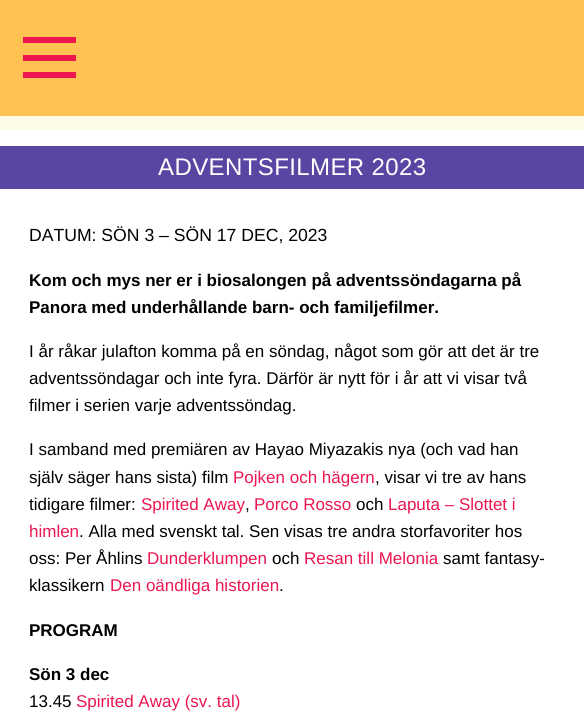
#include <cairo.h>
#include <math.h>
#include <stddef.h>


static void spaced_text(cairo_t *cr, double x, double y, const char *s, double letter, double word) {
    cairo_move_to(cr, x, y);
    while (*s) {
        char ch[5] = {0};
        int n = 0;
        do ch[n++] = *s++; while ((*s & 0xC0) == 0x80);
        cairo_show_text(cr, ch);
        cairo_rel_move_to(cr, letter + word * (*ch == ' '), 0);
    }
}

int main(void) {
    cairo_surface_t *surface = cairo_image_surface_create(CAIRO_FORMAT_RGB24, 584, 727);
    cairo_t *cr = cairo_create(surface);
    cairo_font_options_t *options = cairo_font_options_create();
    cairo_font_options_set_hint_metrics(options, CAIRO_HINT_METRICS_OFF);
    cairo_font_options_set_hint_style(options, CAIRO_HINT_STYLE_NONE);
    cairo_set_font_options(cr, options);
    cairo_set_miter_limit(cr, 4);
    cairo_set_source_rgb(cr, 0.996, 0.757, 0.322);
    cairo_paint(cr);
    cairo_set_source_rgb(cr, 0.929, 0.086, 0.318);
    cairo_rectangle(cr, 23, 37, 53, 6);
    cairo_fill(cr);
    cairo_rectangle(cr, 23, 55, 53, 6);
    cairo_fill(cr);
    cairo_rectangle(cr, 23, 72, 53, 6);
    cairo_fill(cr);
    cairo_set_source_rgb(cr, 0.992, 0.98, 0.898);
    cairo_rectangle(cr, 0, 116, 584, 14);
    cairo_fill(cr);
    cairo_set_source_rgb(cr, 1, 1, 1);
    cairo_rectangle(cr, 0, 130, 584, 597);
    cairo_fill(cr);
    cairo_set_source_rgb(cr, 0.349, 0.275, 0.639);
    cairo_rectangle(cr, 0, 146, 584, 43);
    cairo_fill(cr);
    cairo_select_font_face(cr, "Liberation Sans", CAIRO_FONT_SLANT_NORMAL, CAIRO_FONT_WEIGHT_NORMAL);
    cairo_set_font_size(cr, 24);
    cairo_set_source_rgb(cr, 1, 1, 1);
    spaced_text(cr, 158, 175, "ADVENTSFILMER 2023", 0.4, 0);
    cairo_set_font_size(cr, 17.6);
    cairo_set_source_rgb(cr, 0, 0, 0);
    cairo_move_to(cr, 29, 241);
    cairo_show_text(cr, "DATUM: SÖN 3 – SÖN 17 DEC, 2023");
    cairo_select_font_face(cr, "Liberation Sans", CAIRO_FONT_SLANT_NORMAL, CAIRO_FONT_WEIGHT_BOLD);
    cairo_set_font_size(cr, 17);
    cairo_move_to(cr, 29, 286);
    cairo_show_text(cr, "Kom och mys ner er i biosalongen på adventssöndagarna på");
    cairo_move_to(cr, 29, 313);
    cairo_show_text(cr, "Panora med underhållande barn- och familjefilmer.");
    cairo_select_font_face(cr, "Liberation Sans", CAIRO_FONT_SLANT_NORMAL, CAIRO_FONT_WEIGHT_NORMAL);
    cairo_move_to(cr, 29, 357);
    cairo_show_text(cr, "I år råkar julafton komma på en söndag, något som gör att det är tre");
    cairo_move_to(cr, 29, 384);
    cairo_show_text(cr, "adventssöndagar och inte fyra. Därför är nytt för i år att vi visar två");
    cairo_move_to(cr, 29, 411);
    cairo_show_text(cr, "filmer i serien varje adventssöndag.");
    cairo_move_to(cr, 29, 455);
    cairo_show_text(cr, "I samband med premiären av Hayao Miyazakis nya (och vad han");
    cairo_move_to(cr, 29, 483);
    cairo_show_text(cr, "själv säger hans sista) film");
    cairo_set_source_rgb(cr, 0.929, 0.086, 0.318);
    cairo_move_to(cr, 233, 483);
    cairo_show_text(cr, "Pojken och hägern");
    cairo_set_source_rgb(cr, 0, 0, 0);
    cairo_move_to(cr, 375, 483);
    cairo_show_text(cr, ", visar vi tre av hans");
    cairo_move_to(cr, 29, 510);
    cairo_show_text(cr, "tidigare filmer:");
    cairo_set_source_rgb(cr, 0.929, 0.086, 0.318);
    cairo_move_to(cr, 141, 510);
    cairo_show_text(cr, "Spirited Away");
    cairo_set_source_rgb(cr, 0, 0, 0);
    cairo_move_to(cr, 245, 510);
    cairo_show_text(cr, ",");
    cairo_set_source_rgb(cr, 0.929, 0.086, 0.318);
    cairo_move_to(cr, 254, 510);
    cairo_show_text(cr, "Porco Rosso");
    cairo_set_source_rgb(cr, 0, 0, 0);
    cairo_move_to(cr, 356, 510);
    cairo_show_text(cr, "och");
    cairo_set_source_rgb(cr, 0.929, 0.086, 0.318);
    cairo_move_to(cr, 388, 510);
    cairo_show_text(cr, "Laputa – Slottet i");
    cairo_move_to(cr, 29, 537);
    cairo_show_text(cr, "himlen");
    cairo_set_source_rgb(cr, 0, 0, 0);
    cairo_move_to(cr, 79, 537);
    cairo_show_text(cr, ". Alla med svenskt tal. Sen visas tre andra storfavoriter hos");
    cairo_move_to(cr, 29, 564);
    cairo_show_text(cr, "oss: Per Åhlins");
    cairo_set_source_rgb(cr, 0.929, 0.086, 0.318);
    cairo_move_to(cr, 147, 564);
    cairo_show_text(cr, "Dunderklumpen");
    cairo_set_source_rgb(cr, 0, 0, 0);
    cairo_move_to(cr, 272, 564);
    cairo_show_text(cr, "och");
    cairo_set_source_rgb(cr, 0.929, 0.086, 0.318);
    cairo_move_to(cr, 304, 564);
    cairo_show_text(cr, "Resan till Melonia");
    cairo_set_source_rgb(cr, 0, 0, 0);
    cairo_move_to(cr, 443, 564);
    cairo_show_text(cr, "samt fantasy-");
    cairo_move_to(cr, 29, 591);
    cairo_show_text(cr, "klassikern");
    cairo_set_source_rgb(cr, 0.929, 0.086, 0.318);
    cairo_move_to(cr, 110, 591);
    cairo_show_text(cr, "Den oändliga historien");
    cairo_set_source_rgb(cr, 0, 0, 0);
    cairo_move_to(cr, 279, 591);
    cairo_show_text(cr, ".");
    cairo_select_font_face(cr, "Liberation Sans", CAIRO_FONT_SLANT_NORMAL, CAIRO_FONT_WEIGHT_BOLD);
    cairo_move_to(cr, 29, 636);
    cairo_show_text(cr, "PROGRAM");
    cairo_move_to(cr, 29, 680);
    cairo_show_text(cr, "Sön 3 dec");
    cairo_select_font_face(cr, "Liberation Sans", CAIRO_FONT_SLANT_NORMAL, CAIRO_FONT_WEIGHT_NORMAL);
    cairo_move_to(cr, 29, 707);
    cairo_show_text(cr, "13.45");
    cairo_set_source_rgb(cr, 0.929, 0.086, 0.318);
    cairo_move_to(cr, 76, 707);
    cairo_show_text(cr, "Spirited Away (sv. tal)");
    cairo_surface_write_to_png(surface, "page.png");
    cairo_font_options_destroy(options);
    cairo_destroy(cr);
    cairo_surface_destroy(surface);
    return 0;
}
